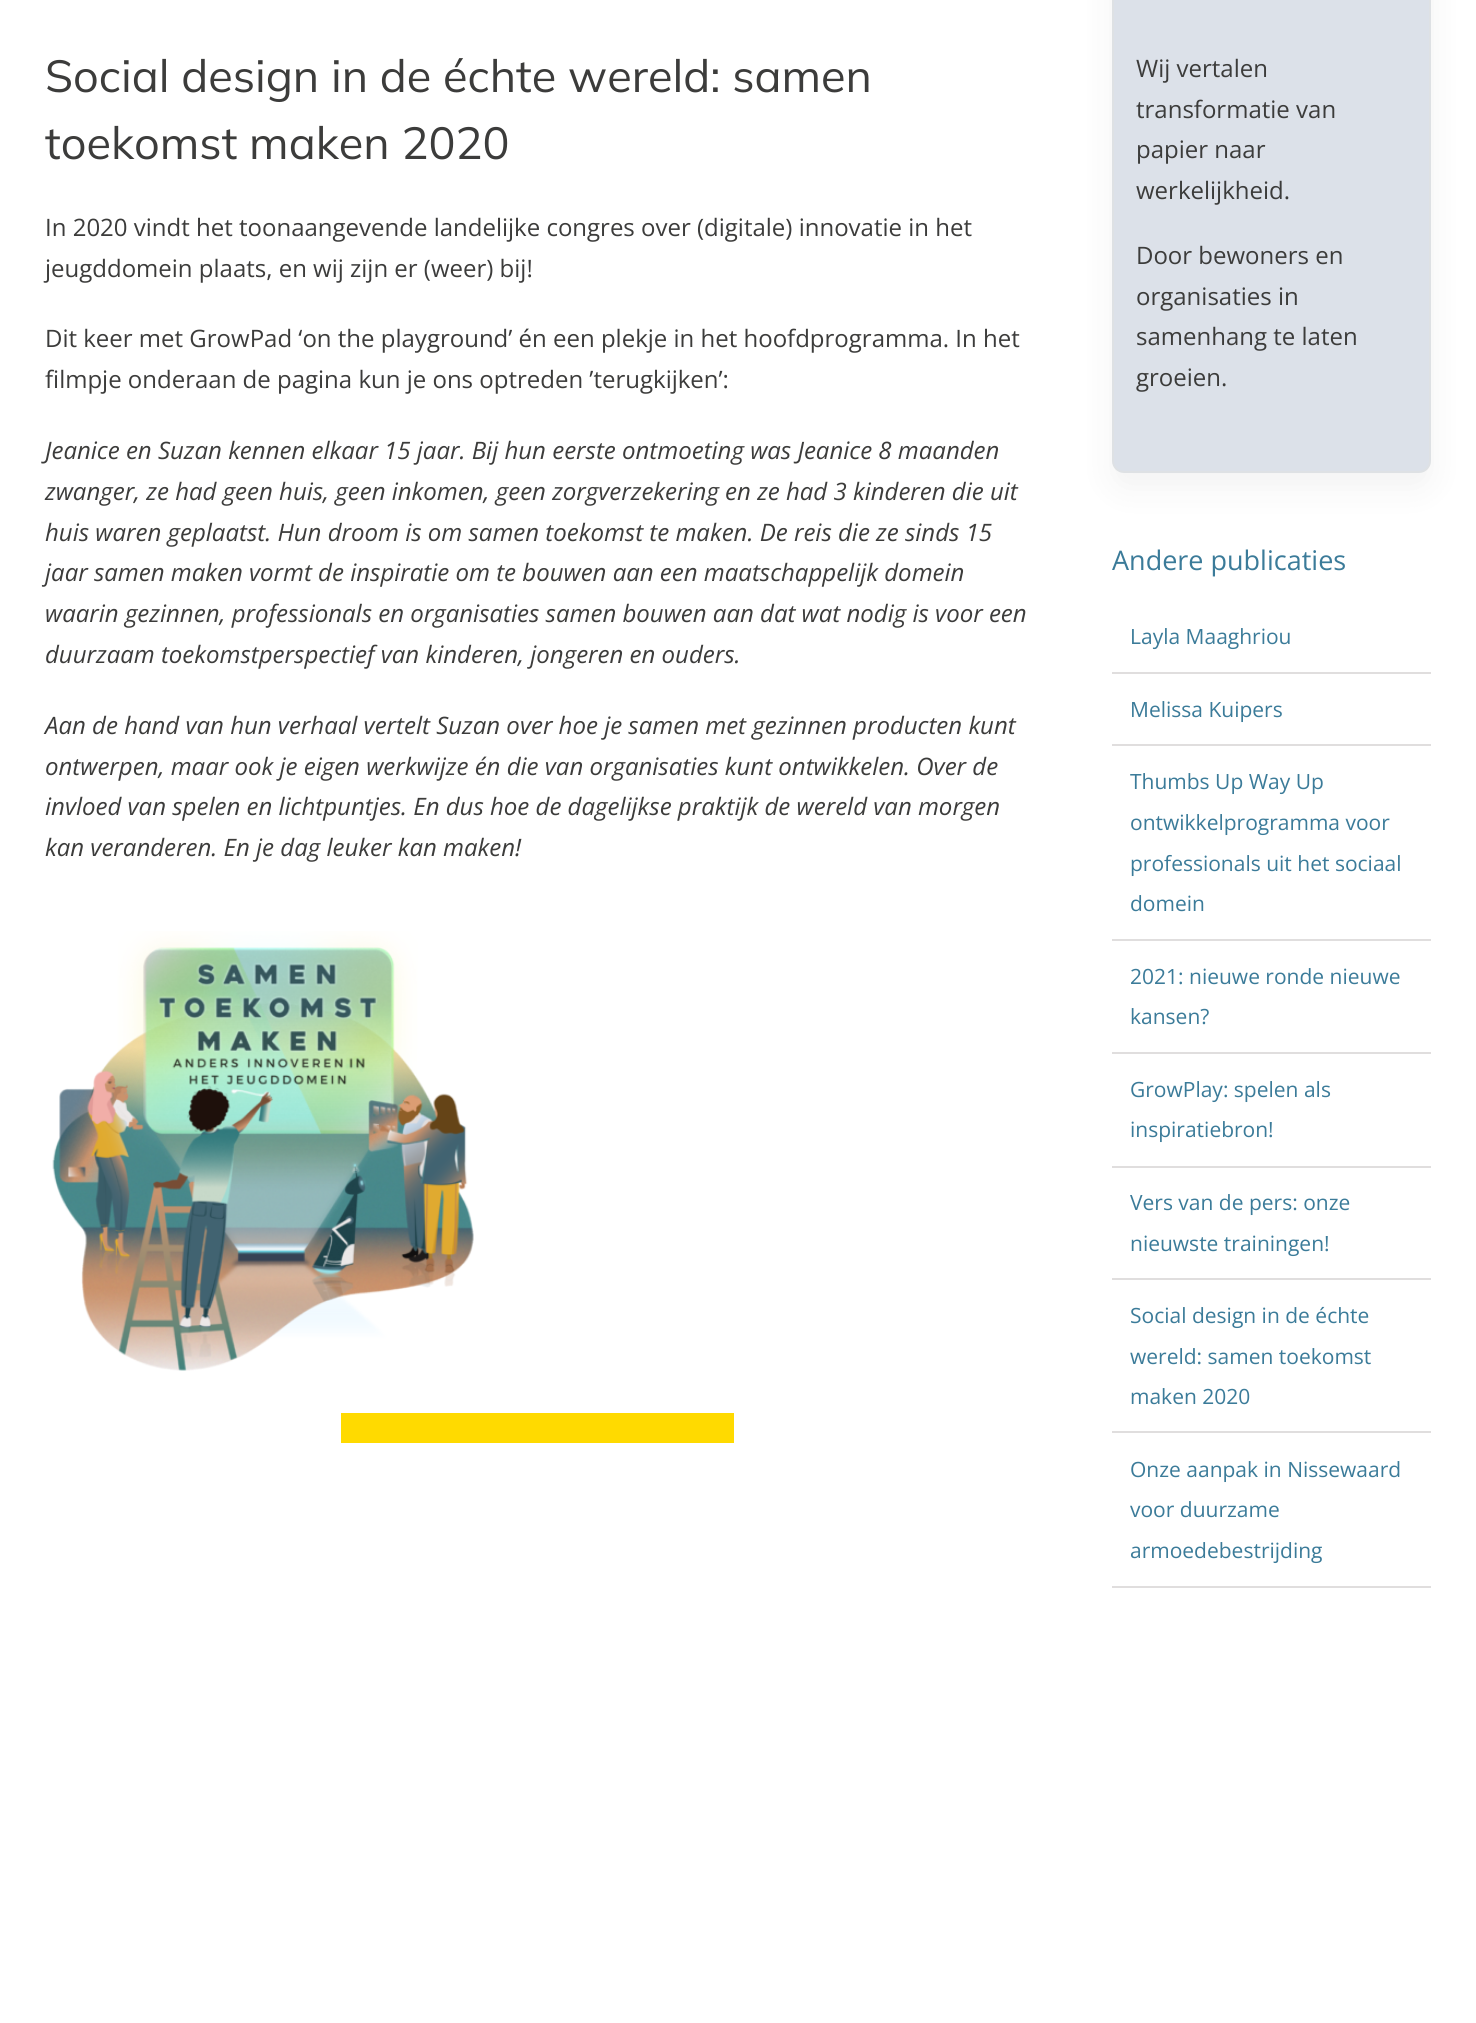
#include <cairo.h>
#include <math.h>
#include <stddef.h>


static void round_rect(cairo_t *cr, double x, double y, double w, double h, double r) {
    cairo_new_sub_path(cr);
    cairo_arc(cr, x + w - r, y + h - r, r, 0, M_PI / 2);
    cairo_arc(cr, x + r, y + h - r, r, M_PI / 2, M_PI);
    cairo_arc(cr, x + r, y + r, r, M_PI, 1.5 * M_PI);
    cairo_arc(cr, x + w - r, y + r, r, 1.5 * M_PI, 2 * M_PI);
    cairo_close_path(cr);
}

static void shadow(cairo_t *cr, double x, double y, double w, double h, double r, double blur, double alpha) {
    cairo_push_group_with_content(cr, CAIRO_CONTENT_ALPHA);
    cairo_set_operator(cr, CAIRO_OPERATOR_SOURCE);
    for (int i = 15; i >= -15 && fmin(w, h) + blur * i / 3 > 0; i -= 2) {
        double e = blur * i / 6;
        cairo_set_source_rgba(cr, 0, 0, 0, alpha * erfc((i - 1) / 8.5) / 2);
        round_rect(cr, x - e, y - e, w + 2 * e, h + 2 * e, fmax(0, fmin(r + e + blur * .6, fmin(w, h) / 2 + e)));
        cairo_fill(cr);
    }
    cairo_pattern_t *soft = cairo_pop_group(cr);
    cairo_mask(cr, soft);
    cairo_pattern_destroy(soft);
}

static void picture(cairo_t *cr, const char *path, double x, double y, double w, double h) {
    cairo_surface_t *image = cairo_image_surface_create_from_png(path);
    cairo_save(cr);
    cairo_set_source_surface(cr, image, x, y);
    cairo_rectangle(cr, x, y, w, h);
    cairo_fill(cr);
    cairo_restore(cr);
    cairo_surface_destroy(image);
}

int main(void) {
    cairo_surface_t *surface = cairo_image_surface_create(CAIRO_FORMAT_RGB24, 1476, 2023);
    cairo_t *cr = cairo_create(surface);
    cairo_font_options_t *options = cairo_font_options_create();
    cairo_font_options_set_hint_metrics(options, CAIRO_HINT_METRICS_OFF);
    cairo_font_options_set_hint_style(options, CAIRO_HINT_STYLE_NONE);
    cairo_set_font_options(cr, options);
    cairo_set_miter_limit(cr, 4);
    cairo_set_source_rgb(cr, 1, 1, 1);
    cairo_paint(cr);
    cairo_select_font_face(cr, "Mulish ExtraLight", CAIRO_FONT_SLANT_NORMAL, CAIRO_FONT_WEIGHT_NORMAL);
    cairo_set_font_size(cr, 45);
    cairo_set_source_rgb(cr, 0.235, 0.235, 0.231);
    cairo_move_to(cr, 45, 92);
    cairo_show_text(cr, "Social design in de échte wereld: samen");
    cairo_move_to(cr, 45, 159);
    cairo_show_text(cr, "toekomst maken 2020");
    cairo_select_font_face(cr, "Open Sans", CAIRO_FONT_SLANT_NORMAL, CAIRO_FONT_WEIGHT_NORMAL);
    cairo_set_font_size(cr, 24);
    cairo_move_to(cr, 45, 236);
    cairo_show_text(cr, "In 2020 vindt het toonaangevende landelijke congres over (digitale) innovatie in het");
    cairo_move_to(cr, 45, 277);
    cairo_show_text(cr, "jeugddomein plaats, en wij zijn er (weer) bij!");
    cairo_move_to(cr, 45, 347);
    cairo_show_text(cr, "Dit keer met GrowPad ‘on the playground’ én een plekje in het hoofdprogramma. In het");
    cairo_move_to(cr, 45, 388);
    cairo_show_text(cr, "filmpje onderaan de pagina kun je ons optreden ’terugkijken’:");
    cairo_select_font_face(cr, "Open Sans", CAIRO_FONT_SLANT_ITALIC, CAIRO_FONT_WEIGHT_NORMAL);
    cairo_move_to(cr, 45, 459);
    cairo_show_text(cr, "Jeanice en Suzan kennen elkaar 15 jaar. Bij hun eerste ontmoeting was Jeanice 8 maanden");
    cairo_move_to(cr, 45, 500);
    cairo_show_text(cr, "zwanger, ze had geen huis, geen inkomen, geen zorgverzekering en ze had 3 kinderen die uit");
    cairo_move_to(cr, 45, 541);
    cairo_show_text(cr, "huis waren geplaatst. Hun droom is om samen toekomst te maken. De reis die ze sinds 15");
    cairo_move_to(cr, 45, 581);
    cairo_show_text(cr, "jaar samen maken vormt de inspiratie om te bouwen aan een maatschappelijk domein");
    cairo_move_to(cr, 45, 622);
    cairo_show_text(cr, "waarin gezinnen, professionals en organisaties samen bouwen aan dat wat nodig is voor een");
    cairo_move_to(cr, 45, 663);
    cairo_show_text(cr, "duurzaam toekomstperspectief van kinderen, jongeren en ouders.");
    cairo_move_to(cr, 45, 734);
    cairo_show_text(cr, "Aan de hand van hun verhaal vertelt Suzan over hoe je samen met gezinnen producten kunt");
    cairo_move_to(cr, 45, 775);
    cairo_show_text(cr, "ontwerpen, maar ook je eigen werkwijze én die van organisaties kunt ontwikkelen. Over de");
    cairo_move_to(cr, 45, 815);
    cairo_show_text(cr, "invloed van spelen en lichtpuntjes. En dus hoe de dagelijkse praktijk de wereld van morgen");
    cairo_move_to(cr, 45, 856);
    cairo_show_text(cr, "kan veranderen. En je dag leuker kan maken!");
    picture(cr, "img1.png", 52, 931, 422, 440);
    cairo_set_source_rgb(cr, 1, 0.855, 0);
    cairo_rectangle(cr, 341, 1413, 393, 30);
    cairo_fill(cr);
    cairo_set_source_rgb(cr, 0, 0, 0);
    shadow(cr, 1112, -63, 319, 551, 12, 17, 0.05);
    cairo_set_source_rgb(cr, 0.863, 0.882, 0.914);
    round_rect(cr, 1113, -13, 317, 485, 11);
    cairo_fill_preserve(cr);
    cairo_set_source_rgb(cr, 0.871, 0.882, 0.894);
    cairo_stroke(cr);
    cairo_select_font_face(cr, "Open Sans", CAIRO_FONT_SLANT_NORMAL, CAIRO_FONT_WEIGHT_NORMAL);
    cairo_set_source_rgb(cr, 0.235, 0.235, 0.231);
    cairo_move_to(cr, 1136, 77);
    cairo_show_text(cr, "Wij vertalen");
    cairo_move_to(cr, 1136, 118);
    cairo_show_text(cr, "transformatie van");
    cairo_move_to(cr, 1136, 158);
    cairo_show_text(cr, "papier naar");
    cairo_move_to(cr, 1136, 199);
    cairo_show_text(cr, "werkelijkheid.");
    cairo_move_to(cr, 1136, 264);
    cairo_show_text(cr, "Door bewoners en");
    cairo_move_to(cr, 1136, 305);
    cairo_show_text(cr, "organisaties in");
    cairo_move_to(cr, 1136, 345);
    cairo_show_text(cr, "samenhang te laten");
    cairo_move_to(cr, 1136, 386);
    cairo_show_text(cr, "groeien.");
    cairo_set_font_size(cr, 27);
    cairo_set_source_rgb(cr, 0.231, 0.482, 0.6);
    cairo_move_to(cr, 1112, 570);
    cairo_show_text(cr, "Andere publicaties");
    cairo_set_source_rgb(cr, 0.878, 0.871, 0.871);
    cairo_rectangle(cr, 1112, 672, 319, 2);
    cairo_fill(cr);
    cairo_set_font_size(cr, 21);
    cairo_set_source_rgb(cr, 0.231, 0.482, 0.6);
    cairo_move_to(cr, 1130, 644);
    cairo_show_text(cr, "Layla Maaghriou");
    cairo_set_source_rgb(cr, 0.878, 0.871, 0.871);
    cairo_rectangle(cr, 1112, 744, 319, 2);
    cairo_fill(cr);
    cairo_set_source_rgb(cr, 0.231, 0.482, 0.6);
    cairo_move_to(cr, 1130, 717);
    cairo_show_text(cr, "Melissa Kuipers");
    cairo_set_source_rgb(cr, 0.878, 0.871, 0.871);
    cairo_rectangle(cr, 1112, 939, 319, 2);
    cairo_fill(cr);
    cairo_set_source_rgb(cr, 0.231, 0.482, 0.6);
    cairo_move_to(cr, 1130, 789);
    cairo_show_text(cr, "Thumbs Up Way Up");
    cairo_move_to(cr, 1130, 830);
    cairo_show_text(cr, "ontwikkelprogramma voor");
    cairo_move_to(cr, 1130, 871);
    cairo_show_text(cr, "professionals uit het sociaal");
    cairo_move_to(cr, 1130, 911);
    cairo_show_text(cr, "domein");
    cairo_set_source_rgb(cr, 0.878, 0.871, 0.871);
    cairo_rectangle(cr, 1112, 1052, 319, 2);
    cairo_fill(cr);
    cairo_set_source_rgb(cr, 0.231, 0.482, 0.6);
    cairo_move_to(cr, 1130, 984);
    cairo_show_text(cr, "2021: nieuwe ronde nieuwe");
    cairo_move_to(cr, 1130, 1024);
    cairo_show_text(cr, "kansen?");
    cairo_set_source_rgb(cr, 0.878, 0.871, 0.871);
    cairo_rectangle(cr, 1112, 1166, 319, 2);
    cairo_fill(cr);
    cairo_set_source_rgb(cr, 0.231, 0.482, 0.6);
    cairo_move_to(cr, 1130, 1097);
    cairo_show_text(cr, "GrowPlay: spelen als");
    cairo_move_to(cr, 1130, 1137);
    cairo_show_text(cr, "inspiratiebron!");
    cairo_set_source_rgb(cr, 0.878, 0.871, 0.871);
    cairo_rectangle(cr, 1112, 1278, 319, 2);
    cairo_fill(cr);
    cairo_set_source_rgb(cr, 0.231, 0.482, 0.6);
    cairo_move_to(cr, 1130, 1210);
    cairo_show_text(cr, "Vers van de pers: onze");
    cairo_move_to(cr, 1130, 1251);
    cairo_show_text(cr, "nieuwste trainingen!");
    cairo_set_source_rgb(cr, 0.878, 0.871, 0.871);
    cairo_rectangle(cr, 1112, 1431, 319, 2);
    cairo_fill(cr);
    cairo_set_source_rgb(cr, 0.231, 0.482, 0.6);
    cairo_move_to(cr, 1130, 1323);
    cairo_show_text(cr, "Social design in de échte");
    cairo_move_to(cr, 1130, 1364);
    cairo_show_text(cr, "wereld: samen toekomst");
    cairo_move_to(cr, 1130, 1404);
    cairo_show_text(cr, "maken 2020");
    cairo_set_source_rgb(cr, 0.878, 0.871, 0.871);
    cairo_rectangle(cr, 1112, 1586, 319, 2);
    cairo_fill(cr);
    cairo_set_source_rgb(cr, 0.231, 0.482, 0.6);
    cairo_move_to(cr, 1130, 1477);
    cairo_show_text(cr, "Onze aanpak in Nissewaard");
    cairo_move_to(cr, 1130, 1517);
    cairo_show_text(cr, "voor duurzame");
    cairo_move_to(cr, 1130, 1558);
    cairo_show_text(cr, "armoedebestrijding");
    cairo_surface_write_to_png(surface, "page.png");
    cairo_font_options_destroy(options);
    cairo_destroy(cr);
    cairo_surface_destroy(surface);
    return 0;
}
